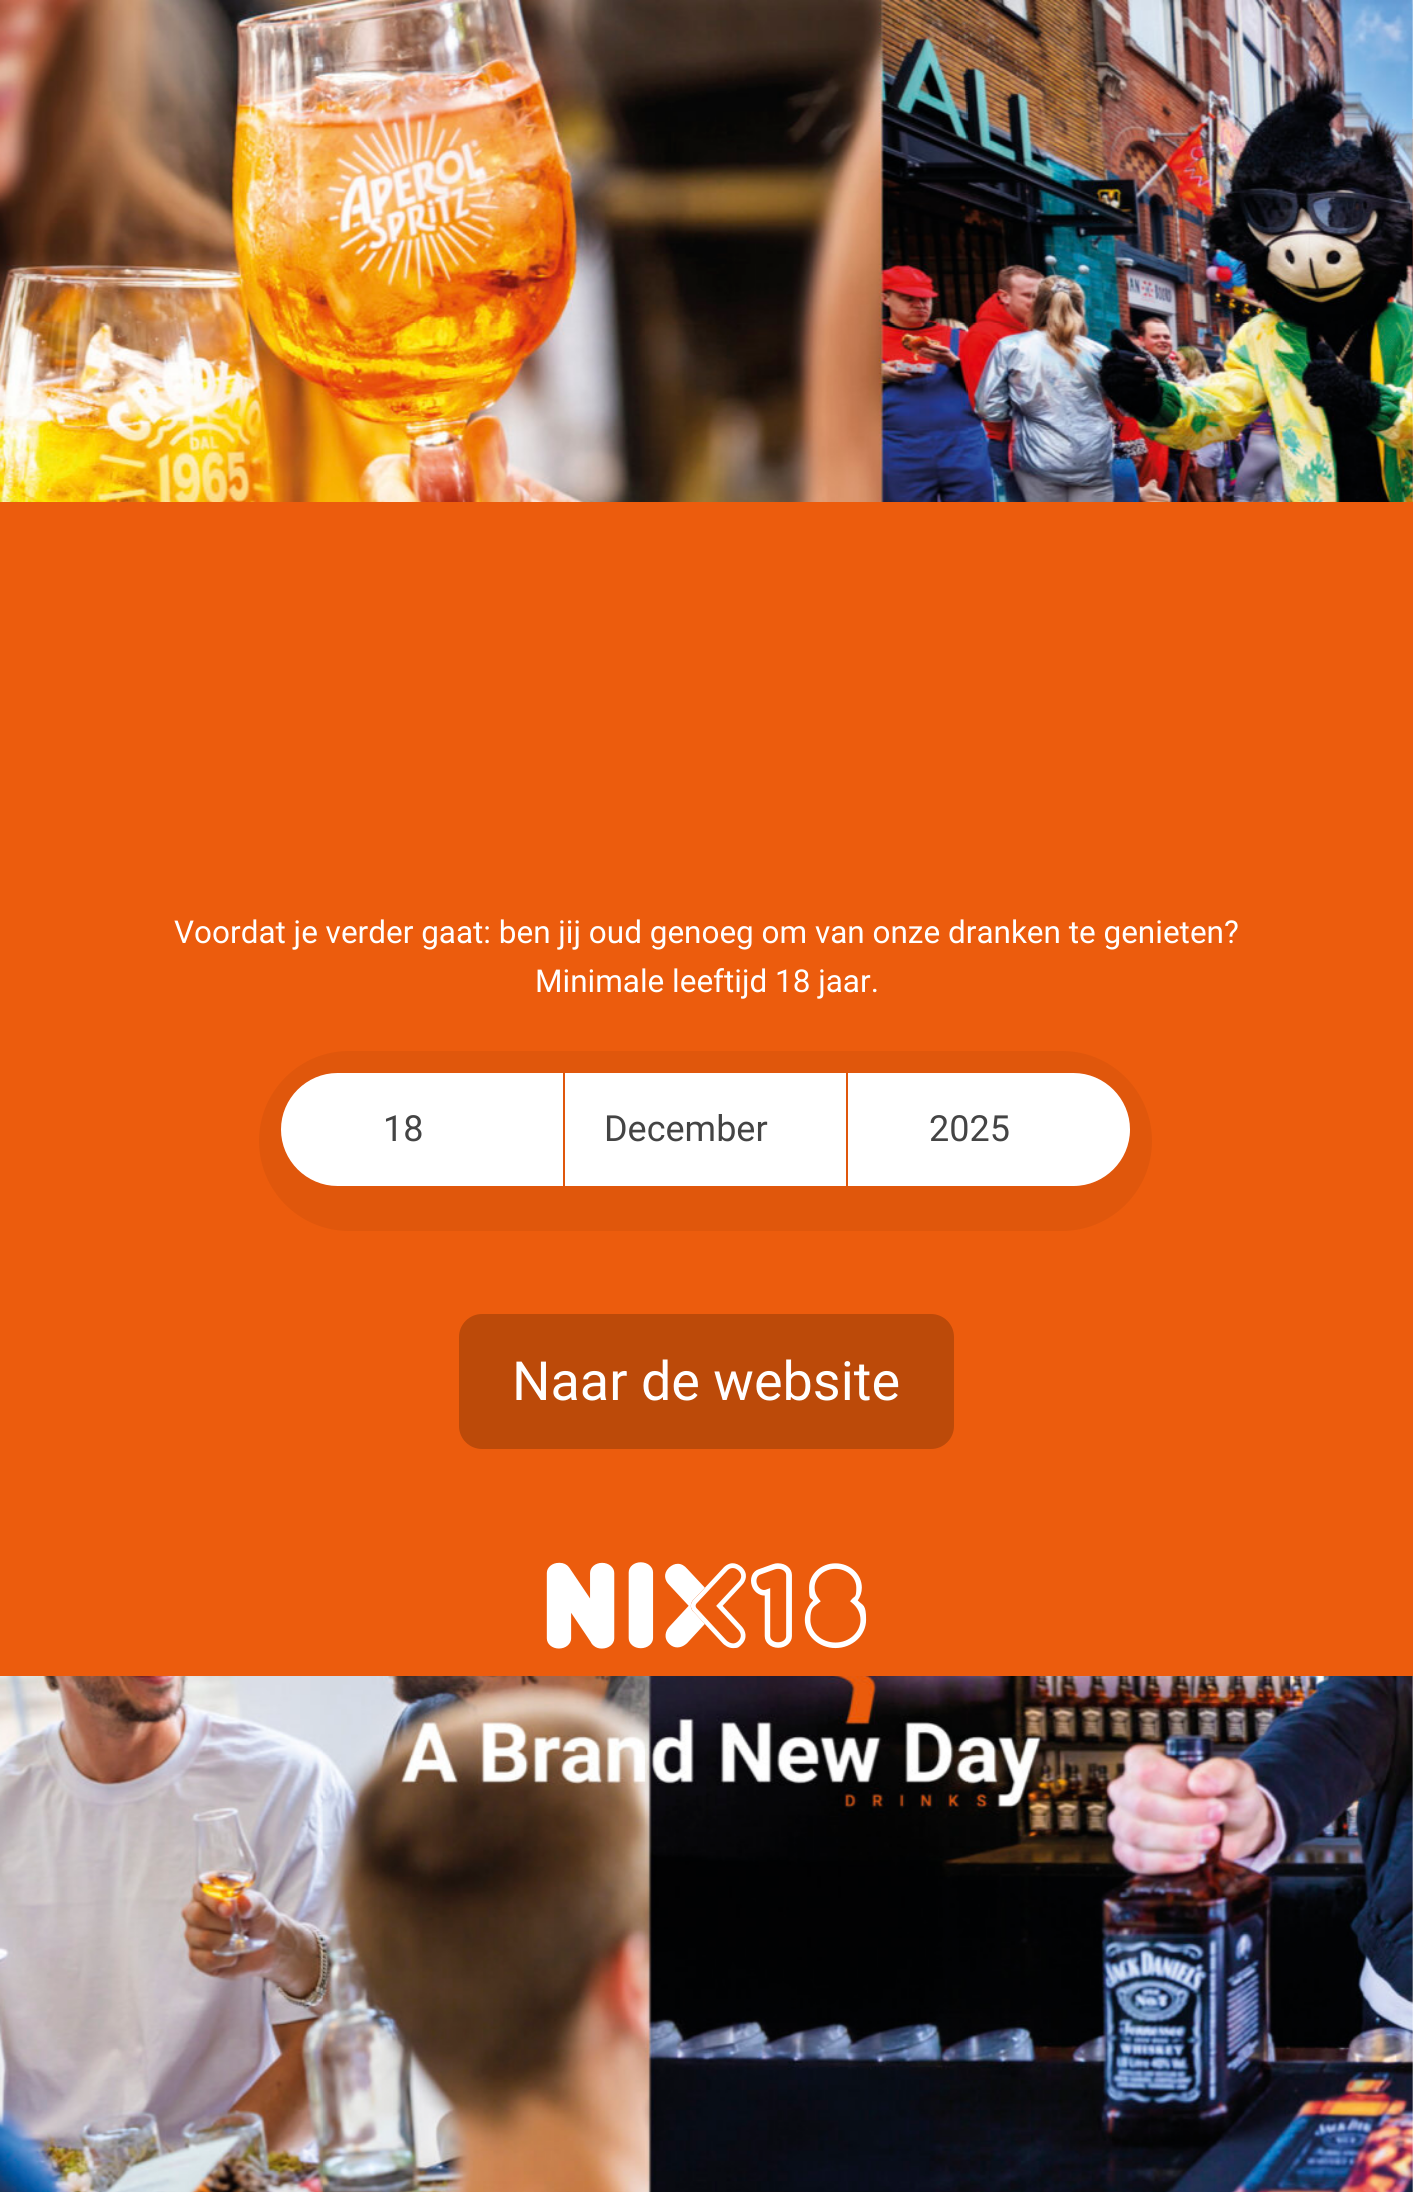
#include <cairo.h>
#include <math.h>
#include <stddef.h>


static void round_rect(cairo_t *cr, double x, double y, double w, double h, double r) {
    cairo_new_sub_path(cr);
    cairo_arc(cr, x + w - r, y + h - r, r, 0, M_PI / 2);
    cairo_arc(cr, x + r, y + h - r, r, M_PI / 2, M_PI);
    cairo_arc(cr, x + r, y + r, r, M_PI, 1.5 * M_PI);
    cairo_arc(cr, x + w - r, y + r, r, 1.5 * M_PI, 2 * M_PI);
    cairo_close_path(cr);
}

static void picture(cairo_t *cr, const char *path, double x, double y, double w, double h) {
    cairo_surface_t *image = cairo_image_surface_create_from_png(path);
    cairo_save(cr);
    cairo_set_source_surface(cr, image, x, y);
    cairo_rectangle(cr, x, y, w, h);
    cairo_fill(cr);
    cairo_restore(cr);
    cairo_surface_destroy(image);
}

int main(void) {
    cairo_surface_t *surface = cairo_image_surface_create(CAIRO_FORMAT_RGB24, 1413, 2192);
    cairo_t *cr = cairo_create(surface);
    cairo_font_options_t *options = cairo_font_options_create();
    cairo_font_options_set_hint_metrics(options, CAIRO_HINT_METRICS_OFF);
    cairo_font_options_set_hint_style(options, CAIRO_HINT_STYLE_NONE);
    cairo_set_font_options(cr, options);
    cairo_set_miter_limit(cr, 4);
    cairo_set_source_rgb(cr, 1, 1, 1);
    cairo_paint(cr);
    picture(cr, "img1.png", 1412, 119, 1, 383);
    picture(cr, "img2.png", 0, 0, 1413, 2192);
    cairo_set_source_rgb(cr, 0.922, 0.361, 0.051);
    cairo_rectangle(cr, 0, 502, 1413, 1174);
    cairo_fill(cr);
    cairo_select_font_face(cr, "Roboto", CAIRO_FONT_SLANT_NORMAL, CAIRO_FONT_WEIGHT_NORMAL);
    cairo_set_font_size(cr, 31.5);
    cairo_set_source_rgb(cr, 1, 1, 1);
    cairo_move_to(cr, 174, 943);
    cairo_show_text(cr, "Voordat je verder gaat: ben jij oud genoeg om van onze dranken te genieten?");
    cairo_move_to(cr, 535, 992);
    cairo_show_text(cr, "Minimale leeftijd 18 jaar.");
    cairo_set_source_rgb(cr, 0.878, 0.341, 0.047);
    round_rect(cr, 259, 1051, 893, 180, 90);
    cairo_fill(cr);
    cairo_set_source_rgb(cr, 1, 1, 1);
    cairo_new_path(cr);
    cairo_move_to(cr, 337.5, 1073);
    cairo_line_to(cr, 563, 1073);
    cairo_line_to(cr, 563, 1186);
    cairo_line_to(cr, 337.5, 1186);
    cairo_curve_to(cr, 306.5, 1186, 281, 1160.5, 281, 1129.5);
    cairo_curve_to(cr, 281, 1098.5, 306.5, 1073, 337.5, 1073);
    cairo_close_path(cr);
    cairo_fill(cr);
    cairo_set_font_size(cr, 36);
    cairo_set_source_rgb(cr, 0.267, 0.267, 0.267);
    cairo_move_to(cr, 383, 1141);
    cairo_show_text(cr, "18");
    cairo_set_source_rgb(cr, 1, 1, 1);
    cairo_rectangle(cr, 565, 1073, 281, 113);
    cairo_fill(cr);
    cairo_set_source_rgb(cr, 0.267, 0.267, 0.267);
    cairo_move_to(cr, 604, 1141);
    cairo_show_text(cr, "December");
    cairo_set_source_rgb(cr, 1, 1, 1);
    cairo_new_path(cr);
    cairo_move_to(cr, 848, 1073);
    cairo_line_to(cr, 1073.5, 1073);
    cairo_curve_to(cr, 1104.5, 1073, 1130, 1098.5, 1130, 1129.5);
    cairo_curve_to(cr, 1130, 1160.5, 1104.5, 1186, 1073.5, 1186);
    cairo_line_to(cr, 848, 1186);
    cairo_close_path(cr);
    cairo_fill(cr);
    cairo_set_source_rgb(cr, 0.267, 0.267, 0.267);
    cairo_move_to(cr, 929, 1141);
    cairo_show_text(cr, "2025");
    cairo_set_source_rgb(cr, 0.737, 0.29, 0.039);
    round_rect(cr, 459, 1314, 495, 135, 23);
    cairo_fill(cr);
    cairo_set_font_size(cr, 54);
    cairo_set_source_rgb(cr, 1, 1, 1);
    cairo_move_to(cr, 512, 1400);
    cairo_show_text(cr, "Naar de website");
    picture(cr, "img3.png", 546, 1562, 321, 87);
    cairo_surface_write_to_png(surface, "page.png");
    cairo_font_options_destroy(options);
    cairo_destroy(cr);
    cairo_surface_destroy(surface);
    return 0;
}
